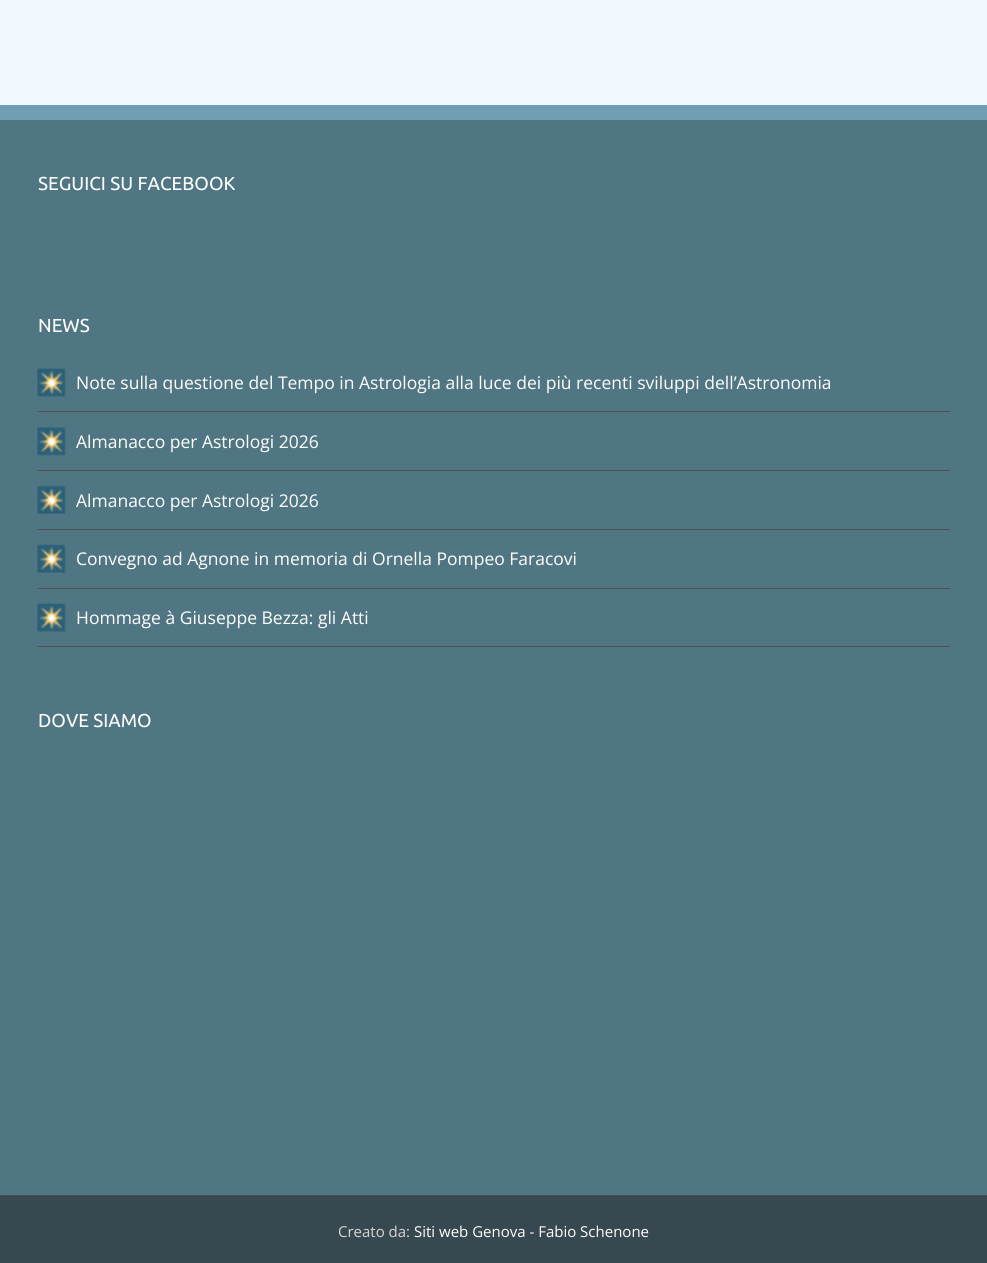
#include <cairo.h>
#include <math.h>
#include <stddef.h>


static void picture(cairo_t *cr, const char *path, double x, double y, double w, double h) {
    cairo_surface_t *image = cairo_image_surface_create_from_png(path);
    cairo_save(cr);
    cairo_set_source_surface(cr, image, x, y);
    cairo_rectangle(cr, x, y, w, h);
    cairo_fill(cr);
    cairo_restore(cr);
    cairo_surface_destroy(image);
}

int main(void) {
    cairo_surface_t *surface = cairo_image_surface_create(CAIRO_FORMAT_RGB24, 987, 1263);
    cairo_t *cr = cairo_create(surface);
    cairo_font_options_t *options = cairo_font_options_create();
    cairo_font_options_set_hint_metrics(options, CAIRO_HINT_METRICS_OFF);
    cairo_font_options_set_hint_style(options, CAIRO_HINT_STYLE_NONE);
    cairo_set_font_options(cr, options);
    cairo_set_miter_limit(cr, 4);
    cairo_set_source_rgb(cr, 0.945, 0.973, 0.996);
    cairo_paint(cr);
    cairo_set_source_rgb(cr, 0.31, 0.463, 0.51);
    cairo_rectangle(cr, 0, 120, 987, 1075);
    cairo_fill(cr);
    cairo_set_source_rgb(cr, 0.439, 0.62, 0.698);
    cairo_rectangle(cr, 0, 105, 987, 15);
    cairo_fill(cr);
    cairo_select_font_face(cr, "Ubuntu", CAIRO_FONT_SLANT_NORMAL, CAIRO_FONT_WEIGHT_NORMAL);
    cairo_set_font_size(cr, 18.75);
    cairo_set_source_rgb(cr, 1, 1, 1);
    cairo_move_to(cr, 38, 190);
    cairo_show_text(cr, "SEGUICI SU FACEBOOK");
    cairo_move_to(cr, 38, 332);
    cairo_show_text(cr, "NEWS");
    cairo_set_source_rgb(cr, 0.314, 0.318, 0.322);
    cairo_rectangle(cr, 38, 411, 912, 1);
    cairo_fill(cr);
    picture(cr, "img1.png", 37, 368, 29, 29);
    cairo_select_font_face(cr, "Open Sans", CAIRO_FONT_SLANT_NORMAL, CAIRO_FONT_WEIGHT_NORMAL);
    cairo_set_font_size(cr, 17.5);
    cairo_set_source_rgb(cr, 1, 1, 1);
    cairo_move_to(cr, 76, 389);
    cairo_show_text(cr, "Note sulla questione del Tempo in Astrologia alla luce dei più recenti sviluppi dell’Astronomia");
    cairo_set_source_rgb(cr, 0.314, 0.318, 0.322);
    cairo_rectangle(cr, 38, 470, 912, 1);
    cairo_fill(cr);
    picture(cr, "img2.png", 37, 427, 29, 29);
    cairo_set_source_rgb(cr, 1, 1, 1);
    cairo_move_to(cr, 76, 448);
    cairo_show_text(cr, "Almanacco per Astrologi 2026");
    cairo_set_source_rgb(cr, 0.314, 0.318, 0.322);
    cairo_rectangle(cr, 38, 529, 912, 1);
    cairo_fill(cr);
    picture(cr, "img3.png", 37, 485, 29, 29);
    cairo_set_source_rgb(cr, 1, 1, 1);
    cairo_move_to(cr, 76, 507);
    cairo_show_text(cr, "Almanacco per Astrologi 2026");
    cairo_set_source_rgb(cr, 0.314, 0.318, 0.322);
    cairo_rectangle(cr, 38, 588, 912, 1);
    cairo_fill(cr);
    picture(cr, "img4.png", 37, 544, 29, 29);
    cairo_set_source_rgb(cr, 1, 1, 1);
    cairo_move_to(cr, 76, 565);
    cairo_show_text(cr, "Convegno ad Agnone in memoria di Ornella Pompeo Faracovi");
    cairo_set_source_rgb(cr, 0.314, 0.318, 0.322);
    cairo_rectangle(cr, 38, 646, 912, 1);
    cairo_fill(cr);
    picture(cr, "img5.png", 37, 603, 29, 29);
    cairo_set_source_rgb(cr, 1, 1, 1);
    cairo_move_to(cr, 76, 624);
    cairo_show_text(cr, "Hommage à Giuseppe Bezza: gli Atti");
    cairo_select_font_face(cr, "Ubuntu", CAIRO_FONT_SLANT_NORMAL, CAIRO_FONT_WEIGHT_NORMAL);
    cairo_set_font_size(cr, 18.75);
    cairo_move_to(cr, 38, 727);
    cairo_show_text(cr, "DOVE SIAMO");
    cairo_set_source_rgb(cr, 0.22, 0.282, 0.318);
    cairo_rectangle(cr, 0, 1196, 987, 67);
    cairo_fill(cr);
    cairo_set_source_rgb(cr, 0.294, 0.298, 0.302);
    cairo_rectangle(cr, 0, 1195, 987, 1);
    cairo_fill(cr);
    cairo_select_font_face(cr, "Open Sans", CAIRO_FONT_SLANT_NORMAL, CAIRO_FONT_WEIGHT_NORMAL);
    cairo_set_font_size(cr, 15);
    cairo_set_source_rgb(cr, 0.839, 0.839, 0.839);
    cairo_move_to(cr, 338, 1237);
    cairo_show_text(cr, "Creato da:");
    cairo_set_source_rgb(cr, 1, 1, 1);
    cairo_move_to(cr, 414, 1237);
    cairo_show_text(cr, "Siti web Genova - Fabio Schenone");
    cairo_surface_write_to_png(surface, "page.png");
    cairo_font_options_destroy(options);
    cairo_destroy(cr);
    cairo_surface_destroy(surface);
    return 0;
}
